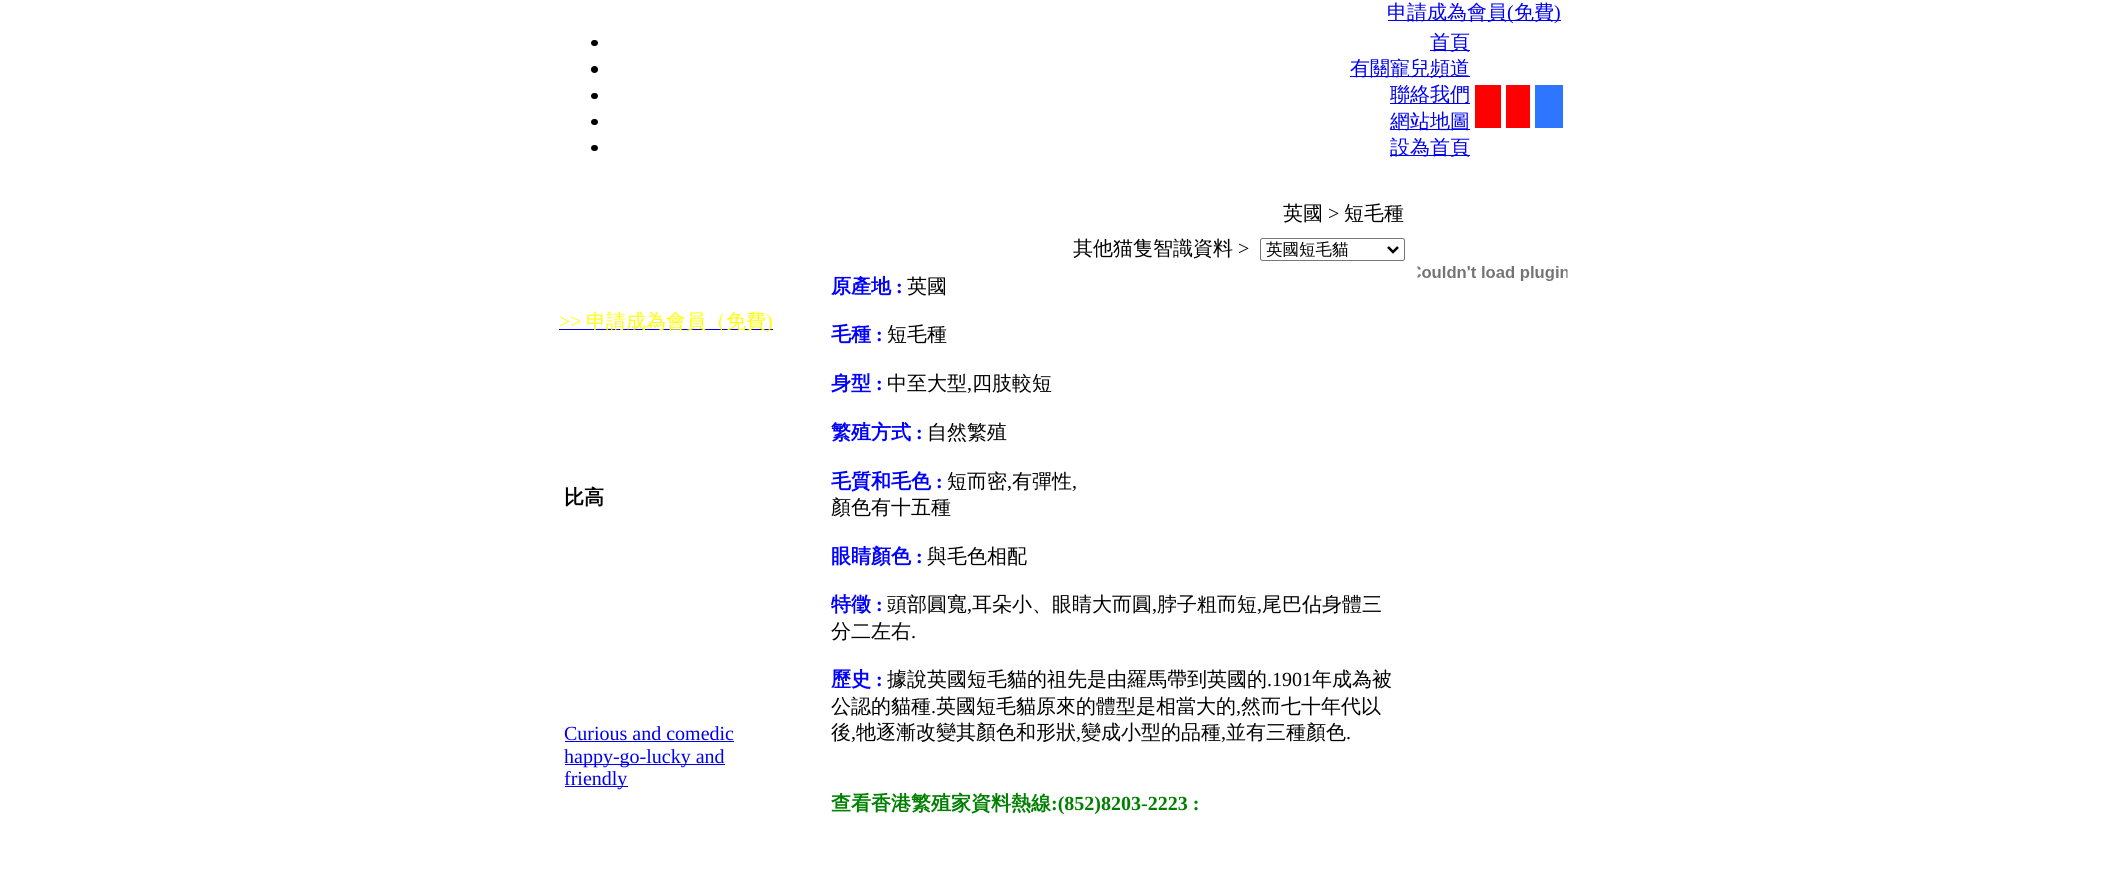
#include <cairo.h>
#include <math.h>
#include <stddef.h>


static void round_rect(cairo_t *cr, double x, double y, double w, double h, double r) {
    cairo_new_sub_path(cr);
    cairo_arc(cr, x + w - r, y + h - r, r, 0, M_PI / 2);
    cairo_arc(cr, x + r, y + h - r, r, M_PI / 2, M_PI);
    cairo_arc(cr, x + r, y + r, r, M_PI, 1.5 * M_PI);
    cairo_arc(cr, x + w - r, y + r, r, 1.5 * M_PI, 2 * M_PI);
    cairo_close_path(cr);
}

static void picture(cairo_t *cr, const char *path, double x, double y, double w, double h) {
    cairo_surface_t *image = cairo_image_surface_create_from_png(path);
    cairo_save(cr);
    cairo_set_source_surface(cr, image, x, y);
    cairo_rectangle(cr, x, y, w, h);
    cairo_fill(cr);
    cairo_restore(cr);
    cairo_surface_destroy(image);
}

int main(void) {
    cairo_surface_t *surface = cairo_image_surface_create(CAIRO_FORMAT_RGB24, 2107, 889);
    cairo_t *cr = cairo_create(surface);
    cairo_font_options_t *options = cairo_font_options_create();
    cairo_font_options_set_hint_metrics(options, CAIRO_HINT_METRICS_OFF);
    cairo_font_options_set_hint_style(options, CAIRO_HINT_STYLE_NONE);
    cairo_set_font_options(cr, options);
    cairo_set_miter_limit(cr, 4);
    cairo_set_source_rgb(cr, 1, 1, 1);
    cairo_paint(cr);
    cairo_set_source_rgb(cr, 0, 0, 0.933);
    cairo_rectangle(cr, 1388, 20, 173, 1);
    cairo_fill(cr);
    cairo_select_font_face(cr, "WenQuanYi Zen Hei Medium", CAIRO_FONT_SLANT_NORMAL, CAIRO_FONT_WEIGHT_NORMAL);
    cairo_set_font_size(cr, 20);
    cairo_move_to(cr, 1387, 19);
    cairo_show_text(cr, "申請成為會員");
    cairo_select_font_face(cr, "Liberation Serif", CAIRO_FONT_SLANT_NORMAL, CAIRO_FONT_WEIGHT_NORMAL);
    cairo_move_to(cr, 1507, 19);
    cairo_show_text(cr, "(");
    cairo_select_font_face(cr, "WenQuanYi Zen Hei Medium", CAIRO_FONT_SLANT_NORMAL, CAIRO_FONT_WEIGHT_NORMAL);
    cairo_move_to(cr, 1514, 19);
    cairo_show_text(cr, "免費");
    cairo_select_font_face(cr, "Liberation Serif", CAIRO_FONT_SLANT_NORMAL, CAIRO_FONT_WEIGHT_NORMAL);
    cairo_move_to(cr, 1554, 19);
    cairo_show_text(cr, ")");
    cairo_set_source_rgb(cr, 0, 0, 0);
    round_rect(cr, 591, 40, 7, 6, 3);
    cairo_fill(cr);
    cairo_set_source_rgb(cr, 0, 0, 0.933);
    cairo_rectangle(cr, 1430, 50, 40, 1);
    cairo_fill(cr);
    cairo_select_font_face(cr, "WenQuanYi Zen Hei Medium", CAIRO_FONT_SLANT_NORMAL, CAIRO_FONT_WEIGHT_NORMAL);
    cairo_move_to(cr, 1430, 49);
    cairo_show_text(cr, "首頁");
    cairo_set_source_rgb(cr, 0, 0, 0);
    cairo_new_path(cr);
    cairo_arc(cr, 594.5, 69.5, 3.5, 0, 2 * M_PI);
    cairo_fill(cr);
    cairo_set_source_rgb(cr, 0, 0, 0.933);
    cairo_rectangle(cr, 1350, 76, 120, 1);
    cairo_fill(cr);
    cairo_move_to(cr, 1350, 75);
    cairo_show_text(cr, "有關寵兒頻道");
    cairo_set_source_rgb(cr, 0, 0, 0);
    round_rect(cr, 591, 93, 7, 6, 3);
    cairo_fill(cr);
    cairo_set_source_rgb(cr, 0, 0, 0.933);
    cairo_rectangle(cr, 1390, 103, 80, 1);
    cairo_fill(cr);
    cairo_move_to(cr, 1390, 101);
    cairo_show_text(cr, "聯絡我們");
    cairo_set_source_rgb(cr, 0, 0, 0);
    round_rect(cr, 591, 119, 7, 6, 3);
    cairo_fill(cr);
    cairo_set_source_rgb(cr, 0, 0, 0.933);
    cairo_rectangle(cr, 1390, 129, 80, 1);
    cairo_fill(cr);
    cairo_move_to(cr, 1390, 128);
    cairo_show_text(cr, "網站地圖");
    cairo_set_source_rgb(cr, 0, 0, 0);
    round_rect(cr, 591, 145, 7, 6, 3);
    cairo_fill(cr);
    cairo_set_source_rgb(cr, 0, 0, 0.933);
    cairo_rectangle(cr, 1390, 155, 80, 1);
    cairo_fill(cr);
    cairo_move_to(cr, 1390, 154);
    cairo_show_text(cr, "設為首頁");
    cairo_set_source_rgb(cr, 1, 0, 0);
    cairo_rectangle(cr, 1475, 85, 26, 43);
    cairo_fill(cr);
    cairo_rectangle(cr, 1506, 85, 24, 43);
    cairo_fill(cr);
    cairo_set_source_rgb(cr, 0.18, 0.463, 1);
    cairo_rectangle(cr, 1535, 85, 28, 43);
    cairo_fill(cr);
    cairo_set_source_rgb(cr, 0, 0, 0);
    cairo_move_to(cr, 1283, 220);
    cairo_show_text(cr, "英國");
    cairo_select_font_face(cr, "Liberation Serif", CAIRO_FONT_SLANT_NORMAL, CAIRO_FONT_WEIGHT_NORMAL);
    cairo_move_to(cr, 1328, 220);
    cairo_show_text(cr, ">");
    cairo_select_font_face(cr, "WenQuanYi Zen Hei Medium", CAIRO_FONT_SLANT_NORMAL, CAIRO_FONT_WEIGHT_NORMAL);
    cairo_move_to(cr, 1344, 220);
    cairo_show_text(cr, "短毛種");
    cairo_move_to(cr, 1073, 255);
    cairo_show_text(cr, "其他猫隻智識資料");
    cairo_select_font_face(cr, "Liberation Serif", CAIRO_FONT_SLANT_NORMAL, CAIRO_FONT_WEIGHT_NORMAL);
    cairo_move_to(cr, 1238, 255);
    cairo_show_text(cr, ">");
    round_rect(cr, 1260.5, 238.5, 144, 22, 2);
    cairo_set_source_rgb(cr, 0.463, 0.463, 0.463);
    cairo_set_line_width(cr, 1);
    cairo_stroke(cr);
    cairo_new_path(cr);
    cairo_move_to(cr, 1388, 247);
    cairo_line_to(cr, 1393, 252);
    cairo_line_to(cr, 1398, 247);
    cairo_set_source_rgb(cr, 0, 0, 0);
    cairo_set_line_width(cr, 2.5);
    cairo_stroke(cr);
    cairo_select_font_face(cr, "WenQuanYi Zen Hei Medium", CAIRO_FONT_SLANT_NORMAL, CAIRO_FONT_WEIGHT_NORMAL);
    cairo_set_font_size(cr, 16.5);
    cairo_move_to(cr, 1266, 255);
    cairo_show_text(cr, "英國短毛貓");
    cairo_select_font_face(cr, "WenQuanYi Zen Hei", CAIRO_FONT_SLANT_NORMAL, CAIRO_FONT_WEIGHT_BOLD);
    cairo_set_font_size(cr, 20);
    cairo_set_source_rgb(cr, 0, 0, 1);
    cairo_move_to(cr, 831, 293);
    cairo_show_text(cr, "原產地");
    cairo_select_font_face(cr, "Liberation Serif", CAIRO_FONT_SLANT_NORMAL, CAIRO_FONT_WEIGHT_BOLD);
    cairo_move_to(cr, 896, 293);
    cairo_show_text(cr, ":");
    cairo_select_font_face(cr, "WenQuanYi Zen Hei Medium", CAIRO_FONT_SLANT_NORMAL, CAIRO_FONT_WEIGHT_NORMAL);
    cairo_set_source_rgb(cr, 0, 0, 0);
    cairo_move_to(cr, 907, 293);
    cairo_show_text(cr, "英國");
    cairo_select_font_face(cr, "WenQuanYi Zen Hei", CAIRO_FONT_SLANT_NORMAL, CAIRO_FONT_WEIGHT_BOLD);
    cairo_set_source_rgb(cr, 0, 0, 1);
    cairo_move_to(cr, 831, 341);
    cairo_show_text(cr, "毛種");
    cairo_select_font_face(cr, "Liberation Serif", CAIRO_FONT_SLANT_NORMAL, CAIRO_FONT_WEIGHT_BOLD);
    cairo_move_to(cr, 876, 341);
    cairo_show_text(cr, ":");
    cairo_select_font_face(cr, "WenQuanYi Zen Hei Medium", CAIRO_FONT_SLANT_NORMAL, CAIRO_FONT_WEIGHT_NORMAL);
    cairo_set_source_rgb(cr, 0, 0, 0);
    cairo_move_to(cr, 887, 341);
    cairo_show_text(cr, "短毛種");
    cairo_select_font_face(cr, "WenQuanYi Zen Hei", CAIRO_FONT_SLANT_NORMAL, CAIRO_FONT_WEIGHT_BOLD);
    cairo_set_source_rgb(cr, 0, 0, 1);
    cairo_move_to(cr, 831, 390);
    cairo_show_text(cr, "身型");
    cairo_select_font_face(cr, "Liberation Serif", CAIRO_FONT_SLANT_NORMAL, CAIRO_FONT_WEIGHT_BOLD);
    cairo_move_to(cr, 876, 390);
    cairo_show_text(cr, ":");
    cairo_select_font_face(cr, "WenQuanYi Zen Hei Medium", CAIRO_FONT_SLANT_NORMAL, CAIRO_FONT_WEIGHT_NORMAL);
    cairo_set_source_rgb(cr, 0, 0, 0);
    cairo_move_to(cr, 887, 390);
    cairo_show_text(cr, "中至大型");
    cairo_select_font_face(cr, "Liberation Serif", CAIRO_FONT_SLANT_NORMAL, CAIRO_FONT_WEIGHT_NORMAL);
    cairo_move_to(cr, 967, 390);
    cairo_show_text(cr, ",");
    cairo_select_font_face(cr, "WenQuanYi Zen Hei Medium", CAIRO_FONT_SLANT_NORMAL, CAIRO_FONT_WEIGHT_NORMAL);
    cairo_move_to(cr, 972, 390);
    cairo_show_text(cr, "四肢較短");
    cairo_select_font_face(cr, "WenQuanYi Zen Hei", CAIRO_FONT_SLANT_NORMAL, CAIRO_FONT_WEIGHT_BOLD);
    cairo_set_source_rgb(cr, 0, 0, 1);
    cairo_move_to(cr, 831, 439);
    cairo_show_text(cr, "繁殖方式");
    cairo_select_font_face(cr, "Liberation Serif", CAIRO_FONT_SLANT_NORMAL, CAIRO_FONT_WEIGHT_BOLD);
    cairo_move_to(cr, 916, 439);
    cairo_show_text(cr, ":");
    cairo_select_font_face(cr, "WenQuanYi Zen Hei Medium", CAIRO_FONT_SLANT_NORMAL, CAIRO_FONT_WEIGHT_NORMAL);
    cairo_set_source_rgb(cr, 0, 0, 0);
    cairo_move_to(cr, 927, 439);
    cairo_show_text(cr, "自然繁殖");
    cairo_select_font_face(cr, "WenQuanYi Zen Hei", CAIRO_FONT_SLANT_NORMAL, CAIRO_FONT_WEIGHT_BOLD);
    cairo_set_source_rgb(cr, 0, 0, 1);
    cairo_move_to(cr, 831, 488);
    cairo_show_text(cr, "毛質和毛色");
    cairo_select_font_face(cr, "Liberation Serif", CAIRO_FONT_SLANT_NORMAL, CAIRO_FONT_WEIGHT_BOLD);
    cairo_move_to(cr, 936, 488);
    cairo_show_text(cr, ":");
    cairo_select_font_face(cr, "WenQuanYi Zen Hei Medium", CAIRO_FONT_SLANT_NORMAL, CAIRO_FONT_WEIGHT_NORMAL);
    cairo_set_source_rgb(cr, 0, 0, 0);
    cairo_move_to(cr, 947, 488);
    cairo_show_text(cr, "短而密");
    cairo_select_font_face(cr, "Liberation Serif", CAIRO_FONT_SLANT_NORMAL, CAIRO_FONT_WEIGHT_NORMAL);
    cairo_move_to(cr, 1007, 488);
    cairo_show_text(cr, ",");
    cairo_select_font_face(cr, "WenQuanYi Zen Hei Medium", CAIRO_FONT_SLANT_NORMAL, CAIRO_FONT_WEIGHT_NORMAL);
    cairo_move_to(cr, 1012, 488);
    cairo_show_text(cr, "有彈性");
    cairo_select_font_face(cr, "Liberation Serif", CAIRO_FONT_SLANT_NORMAL, CAIRO_FONT_WEIGHT_NORMAL);
    cairo_move_to(cr, 1072, 488);
    cairo_show_text(cr, ",");
    cairo_select_font_face(cr, "WenQuanYi Zen Hei Medium", CAIRO_FONT_SLANT_NORMAL, CAIRO_FONT_WEIGHT_NORMAL);
    cairo_move_to(cr, 831, 514);
    cairo_show_text(cr, "顏色有十五種");
    cairo_select_font_face(cr, "WenQuanYi Zen Hei", CAIRO_FONT_SLANT_NORMAL, CAIRO_FONT_WEIGHT_BOLD);
    cairo_set_source_rgb(cr, 0, 0, 1);
    cairo_move_to(cr, 831, 563);
    cairo_show_text(cr, "眼睛顏色");
    cairo_select_font_face(cr, "Liberation Serif", CAIRO_FONT_SLANT_NORMAL, CAIRO_FONT_WEIGHT_BOLD);
    cairo_move_to(cr, 916, 563);
    cairo_show_text(cr, ":");
    cairo_select_font_face(cr, "WenQuanYi Zen Hei Medium", CAIRO_FONT_SLANT_NORMAL, CAIRO_FONT_WEIGHT_NORMAL);
    cairo_set_source_rgb(cr, 0, 0, 0);
    cairo_move_to(cr, 927, 563);
    cairo_show_text(cr, "與毛色相配");
    cairo_select_font_face(cr, "WenQuanYi Zen Hei", CAIRO_FONT_SLANT_NORMAL, CAIRO_FONT_WEIGHT_BOLD);
    cairo_set_source_rgb(cr, 0, 0, 1);
    cairo_move_to(cr, 831, 611);
    cairo_show_text(cr, "特徵");
    cairo_select_font_face(cr, "Liberation Serif", CAIRO_FONT_SLANT_NORMAL, CAIRO_FONT_WEIGHT_BOLD);
    cairo_move_to(cr, 876, 611);
    cairo_show_text(cr, ":");
    cairo_select_font_face(cr, "WenQuanYi Zen Hei Medium", CAIRO_FONT_SLANT_NORMAL, CAIRO_FONT_WEIGHT_NORMAL);
    cairo_set_source_rgb(cr, 0, 0, 0);
    cairo_move_to(cr, 887, 611);
    cairo_show_text(cr, "頭部圓寬");
    cairo_select_font_face(cr, "Liberation Serif", CAIRO_FONT_SLANT_NORMAL, CAIRO_FONT_WEIGHT_NORMAL);
    cairo_move_to(cr, 967, 611);
    cairo_show_text(cr, ",");
    cairo_select_font_face(cr, "WenQuanYi Zen Hei Medium", CAIRO_FONT_SLANT_NORMAL, CAIRO_FONT_WEIGHT_NORMAL);
    cairo_move_to(cr, 972, 611);
    cairo_show_text(cr, "耳朵小、眼睛大而圓");
    cairo_select_font_face(cr, "Liberation Serif", CAIRO_FONT_SLANT_NORMAL, CAIRO_FONT_WEIGHT_NORMAL);
    cairo_move_to(cr, 1152, 611);
    cairo_show_text(cr, ",");
    cairo_select_font_face(cr, "WenQuanYi Zen Hei Medium", CAIRO_FONT_SLANT_NORMAL, CAIRO_FONT_WEIGHT_NORMAL);
    cairo_move_to(cr, 1157, 611);
    cairo_show_text(cr, "脖子粗而短");
    cairo_select_font_face(cr, "Liberation Serif", CAIRO_FONT_SLANT_NORMAL, CAIRO_FONT_WEIGHT_NORMAL);
    cairo_move_to(cr, 1257, 611);
    cairo_show_text(cr, ",");
    cairo_select_font_face(cr, "WenQuanYi Zen Hei Medium", CAIRO_FONT_SLANT_NORMAL, CAIRO_FONT_WEIGHT_NORMAL);
    cairo_move_to(cr, 1262, 611);
    cairo_show_text(cr, "尾巴佔身體三");
    cairo_move_to(cr, 831, 638);
    cairo_show_text(cr, "分二左右");
    cairo_select_font_face(cr, "Liberation Serif", CAIRO_FONT_SLANT_NORMAL, CAIRO_FONT_WEIGHT_NORMAL);
    cairo_move_to(cr, 911, 638);
    cairo_show_text(cr, ".");
    cairo_select_font_face(cr, "WenQuanYi Zen Hei", CAIRO_FONT_SLANT_NORMAL, CAIRO_FONT_WEIGHT_BOLD);
    cairo_set_source_rgb(cr, 0, 0, 1);
    cairo_move_to(cr, 831, 686);
    cairo_show_text(cr, "歷史");
    cairo_select_font_face(cr, "Liberation Serif", CAIRO_FONT_SLANT_NORMAL, CAIRO_FONT_WEIGHT_BOLD);
    cairo_move_to(cr, 876, 686);
    cairo_show_text(cr, ":");
    cairo_select_font_face(cr, "WenQuanYi Zen Hei Medium", CAIRO_FONT_SLANT_NORMAL, CAIRO_FONT_WEIGHT_NORMAL);
    cairo_set_source_rgb(cr, 0, 0, 0);
    cairo_move_to(cr, 887, 686);
    cairo_show_text(cr, "據說英國短毛貓的祖先是由羅馬帶到英國的");
    cairo_select_font_face(cr, "Liberation Serif", CAIRO_FONT_SLANT_NORMAL, CAIRO_FONT_WEIGHT_NORMAL);
    cairo_move_to(cr, 1267, 686);
    cairo_show_text(cr, ".1901");
    cairo_select_font_face(cr, "WenQuanYi Zen Hei Medium", CAIRO_FONT_SLANT_NORMAL, CAIRO_FONT_WEIGHT_NORMAL);
    cairo_move_to(cr, 1312, 686);
    cairo_show_text(cr, "年成為被");
    cairo_move_to(cr, 831, 713);
    cairo_show_text(cr, "公認的貓種");
    cairo_select_font_face(cr, "Liberation Serif", CAIRO_FONT_SLANT_NORMAL, CAIRO_FONT_WEIGHT_NORMAL);
    cairo_move_to(cr, 931, 713);
    cairo_show_text(cr, ".");
    cairo_select_font_face(cr, "WenQuanYi Zen Hei Medium", CAIRO_FONT_SLANT_NORMAL, CAIRO_FONT_WEIGHT_NORMAL);
    cairo_move_to(cr, 936, 713);
    cairo_show_text(cr, "英國短毛貓原來的體型是相當大的");
    cairo_select_font_face(cr, "Liberation Serif", CAIRO_FONT_SLANT_NORMAL, CAIRO_FONT_WEIGHT_NORMAL);
    cairo_move_to(cr, 1236, 713);
    cairo_show_text(cr, ",");
    cairo_select_font_face(cr, "WenQuanYi Zen Hei Medium", CAIRO_FONT_SLANT_NORMAL, CAIRO_FONT_WEIGHT_NORMAL);
    cairo_move_to(cr, 1241, 713);
    cairo_show_text(cr, "然而七十年代以");
    cairo_move_to(cr, 831, 739);
    cairo_show_text(cr, "後");
    cairo_select_font_face(cr, "Liberation Serif", CAIRO_FONT_SLANT_NORMAL, CAIRO_FONT_WEIGHT_NORMAL);
    cairo_move_to(cr, 851, 739);
    cairo_show_text(cr, ",");
    cairo_select_font_face(cr, "WenQuanYi Zen Hei Medium", CAIRO_FONT_SLANT_NORMAL, CAIRO_FONT_WEIGHT_NORMAL);
    cairo_move_to(cr, 856, 739);
    cairo_show_text(cr, "牠逐漸改變其顏色和形狀");
    cairo_select_font_face(cr, "Liberation Serif", CAIRO_FONT_SLANT_NORMAL, CAIRO_FONT_WEIGHT_NORMAL);
    cairo_move_to(cr, 1076, 739);
    cairo_show_text(cr, ",");
    cairo_select_font_face(cr, "WenQuanYi Zen Hei Medium", CAIRO_FONT_SLANT_NORMAL, CAIRO_FONT_WEIGHT_NORMAL);
    cairo_move_to(cr, 1081, 739);
    cairo_show_text(cr, "變成小型的品種");
    cairo_select_font_face(cr, "Liberation Serif", CAIRO_FONT_SLANT_NORMAL, CAIRO_FONT_WEIGHT_NORMAL);
    cairo_move_to(cr, 1221, 739);
    cairo_show_text(cr, ",");
    cairo_select_font_face(cr, "WenQuanYi Zen Hei Medium", CAIRO_FONT_SLANT_NORMAL, CAIRO_FONT_WEIGHT_NORMAL);
    cairo_move_to(cr, 1226, 739);
    cairo_show_text(cr, "並有三種顏色");
    cairo_select_font_face(cr, "Liberation Serif", CAIRO_FONT_SLANT_NORMAL, CAIRO_FONT_WEIGHT_NORMAL);
    cairo_move_to(cr, 1346, 739);
    cairo_show_text(cr, ".");
    cairo_select_font_face(cr, "WenQuanYi Zen Hei", CAIRO_FONT_SLANT_NORMAL, CAIRO_FONT_WEIGHT_BOLD);
    cairo_set_source_rgb(cr, 0, 0.502, 0);
    cairo_move_to(cr, 831, 810);
    cairo_show_text(cr, "查看香港繁殖家資料熱線");
    cairo_select_font_face(cr, "Liberation Serif", CAIRO_FONT_SLANT_NORMAL, CAIRO_FONT_WEIGHT_BOLD);
    cairo_move_to(cr, 1051, 810);
    cairo_show_text(cr, ":(852)8203-2223 :");
    picture(cr, "img1.png", 1417, 266, 151, 15);
    cairo_select_font_face(cr, "Liberation Serif", CAIRO_FONT_SLANT_NORMAL, CAIRO_FONT_WEIGHT_NORMAL);
    cairo_set_source_rgb(cr, 1, 1, 0);
    cairo_move_to(cr, 559, 328);
    cairo_show_text(cr, ">>");
    cairo_set_source_rgb(cr, 0, 0, 0.933);
    cairo_rectangle(cr, 559, 329, 214, 1);
    cairo_fill(cr);
    cairo_select_font_face(cr, "WenQuanYi Zen Hei Medium", CAIRO_FONT_SLANT_NORMAL, CAIRO_FONT_WEIGHT_NORMAL);
    cairo_set_source_rgb(cr, 1, 1, 0);
    cairo_move_to(cr, 586, 328);
    cairo_show_text(cr, "申請成為會員（免費");
    cairo_select_font_face(cr, "Liberation Serif", CAIRO_FONT_SLANT_NORMAL, CAIRO_FONT_WEIGHT_NORMAL);
    cairo_move_to(cr, 766, 328);
    cairo_show_text(cr, ")");
    cairo_select_font_face(cr, "WenQuanYi Zen Hei", CAIRO_FONT_SLANT_NORMAL, CAIRO_FONT_WEIGHT_BOLD);
    cairo_set_source_rgb(cr, 0, 0, 0);
    cairo_move_to(cr, 564, 504);
    cairo_show_text(cr, "比高");
    cairo_select_font_face(cr, "Liberation Serif", CAIRO_FONT_SLANT_NORMAL, CAIRO_FONT_WEIGHT_NORMAL);
    cairo_set_source_rgb(cr, 0, 0, 0.933);
    cairo_move_to(cr, 564, 740);
    cairo_show_text(cr, "Curious and comedic");
    cairo_rectangle(cr, 565, 741, 169, 1);
    cairo_fill(cr);
    cairo_rectangle(cr, 565, 764, 160, 1);
    cairo_fill(cr);
    cairo_move_to(cr, 564, 763);
    cairo_show_text(cr, "happy-go-lucky and");
    cairo_rectangle(cr, 565, 786, 63, 1);
    cairo_fill(cr);
    cairo_move_to(cr, 564, 785);
    cairo_show_text(cr, "friendly");
    cairo_surface_write_to_png(surface, "page.png");
    cairo_font_options_destroy(options);
    cairo_destroy(cr);
    cairo_surface_destroy(surface);
    return 0;
}
